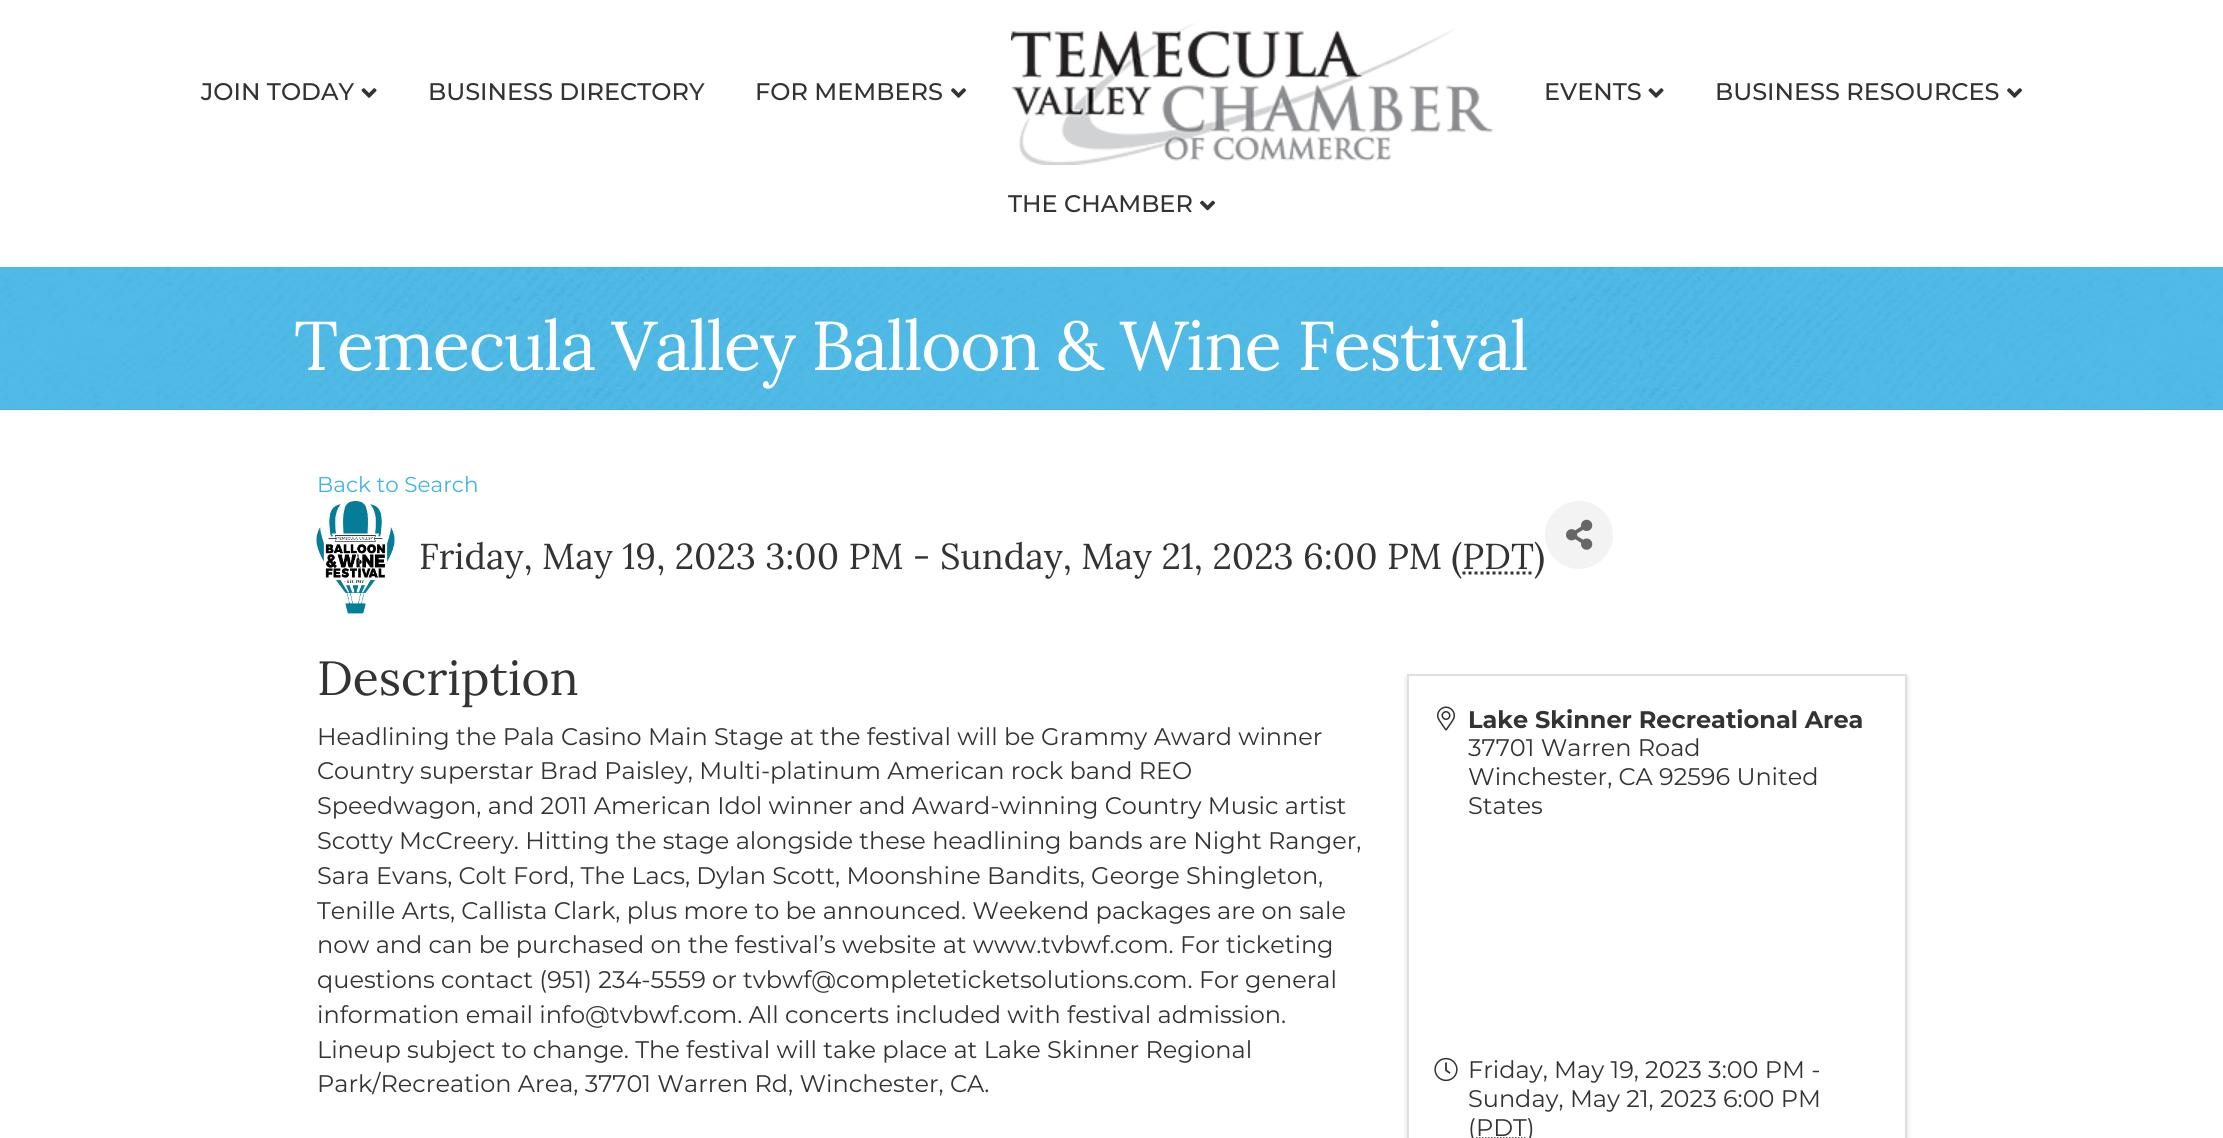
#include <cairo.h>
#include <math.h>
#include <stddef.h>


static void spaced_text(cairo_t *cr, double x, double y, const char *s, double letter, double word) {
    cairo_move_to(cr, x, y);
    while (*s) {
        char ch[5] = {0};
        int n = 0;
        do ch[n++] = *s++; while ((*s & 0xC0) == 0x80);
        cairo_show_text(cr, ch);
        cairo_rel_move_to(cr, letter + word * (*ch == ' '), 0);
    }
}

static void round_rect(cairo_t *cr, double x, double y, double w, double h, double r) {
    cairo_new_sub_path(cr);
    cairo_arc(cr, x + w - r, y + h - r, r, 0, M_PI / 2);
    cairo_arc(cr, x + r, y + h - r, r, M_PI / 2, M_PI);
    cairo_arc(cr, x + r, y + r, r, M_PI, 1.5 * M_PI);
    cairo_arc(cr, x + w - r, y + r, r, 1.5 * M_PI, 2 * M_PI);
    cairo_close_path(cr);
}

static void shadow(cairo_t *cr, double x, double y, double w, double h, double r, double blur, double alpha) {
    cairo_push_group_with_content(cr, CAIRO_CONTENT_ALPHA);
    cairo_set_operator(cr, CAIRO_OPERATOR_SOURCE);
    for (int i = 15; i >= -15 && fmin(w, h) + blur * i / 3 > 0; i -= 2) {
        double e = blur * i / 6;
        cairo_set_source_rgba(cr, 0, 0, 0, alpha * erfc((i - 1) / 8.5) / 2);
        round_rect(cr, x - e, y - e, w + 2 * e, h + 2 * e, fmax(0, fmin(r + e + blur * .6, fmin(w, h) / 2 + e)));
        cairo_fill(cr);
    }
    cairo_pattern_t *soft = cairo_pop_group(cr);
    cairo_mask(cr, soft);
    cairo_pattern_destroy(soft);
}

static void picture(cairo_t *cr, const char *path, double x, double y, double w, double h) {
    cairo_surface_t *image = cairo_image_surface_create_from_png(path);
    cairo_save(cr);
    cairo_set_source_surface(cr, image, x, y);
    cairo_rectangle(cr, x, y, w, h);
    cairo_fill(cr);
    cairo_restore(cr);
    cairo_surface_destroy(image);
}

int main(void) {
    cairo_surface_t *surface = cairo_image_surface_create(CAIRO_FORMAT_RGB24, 2223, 1138);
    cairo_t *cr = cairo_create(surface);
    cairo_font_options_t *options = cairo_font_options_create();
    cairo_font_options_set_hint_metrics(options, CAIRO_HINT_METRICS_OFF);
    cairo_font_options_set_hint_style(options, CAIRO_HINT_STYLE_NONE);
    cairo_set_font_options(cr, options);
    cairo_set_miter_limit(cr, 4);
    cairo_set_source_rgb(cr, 1, 1, 1);
    cairo_paint(cr);
    cairo_select_font_face(cr, "Montserrat Medium", CAIRO_FONT_SLANT_NORMAL, CAIRO_FONT_WEIGHT_NORMAL);
    cairo_set_font_size(cr, 24);
    cairo_set_source_rgb(cr, 0.2, 0.2, 0.2);
    cairo_move_to(cr, 201, 100);
    cairo_show_text(cr, "JOIN TODAY");
    picture(cr, "img1.png", 361, 88, 16, 10);
    cairo_move_to(cr, 428, 100);
    cairo_show_text(cr, "BUSINESS DIRECTORY");
    cairo_move_to(cr, 755, 100);
    cairo_show_text(cr, "FOR MEMBERS");
    picture(cr, "img2.png", 951, 88, 15, 10);
    picture(cr, "img3.png", 1011, 23, 482, 142);
    cairo_move_to(cr, 1544, 100);
    cairo_show_text(cr, "EVENTS");
    picture(cr, "img1.png", 1648, 88, 16, 10);
    cairo_move_to(cr, 1715, 100);
    cairo_show_text(cr, "BUSINESS RESOURCES");
    picture(cr, "img2.png", 2007, 88, 15, 10);
    cairo_move_to(cr, 1008, 212);
    cairo_show_text(cr, "THE CHAMBER");
    picture(cr, "img4.png", 1200, 200, 15, 11);
    cairo_set_source_rgb(cr, 0.231, 0.663, 0.855);
    cairo_rectangle(cr, 0, 409, 2223, 1);
    cairo_fill(cr);
    picture(cr, "img5.png", 0, 267, 2223, 143);
    cairo_select_font_face(cr, "Lora", CAIRO_FONT_SLANT_NORMAL, CAIRO_FONT_WEIGHT_NORMAL);
    cairo_set_font_size(cr, 69);
    cairo_set_source_rgb(cr, 1, 1, 1);
    spaced_text(cr, 294, 370, "Temecula Valley Balloon & Wine Festival", -1.5, 0);
    cairo_select_font_face(cr, "Montserrat", CAIRO_FONT_SLANT_NORMAL, CAIRO_FONT_WEIGHT_NORMAL);
    cairo_set_font_size(cr, 21.5);
    cairo_set_source_rgb(cr, 0.251, 0.706, 0.898);
    cairo_move_to(cr, 317, 492);
    cairo_show_text(cr, "Back to Search");
    picture(cr, "img6.png", 316, 501, 79, 113);
    cairo_select_font_face(cr, "Lora", CAIRO_FONT_SLANT_NORMAL, CAIRO_FONT_WEIGHT_NORMAL);
    cairo_set_font_size(cr, 36);
    cairo_set_source_rgb(cr, 0.2, 0.2, 0.2);
    cairo_move_to(cr, 419, 569);
    cairo_show_text(cr, "Friday, May 19, 2023 3:00 PM - Sunday, May 21, 2023 6:00 PM (PDT)");
    cairo_new_path(cr);
    cairo_move_to(cr, 1462.5, 573);
    cairo_line_to(cr, 1534, 573);
    cairo_set_line_width(cr, 3);
    cairo_set_dash(cr, (double[]){3, 3}, 2, 0);
    cairo_stroke(cr);
    cairo_set_source_rgb(cr, 0.953, 0.953, 0.953);
    cairo_arc(cr, 1579, 535, 34, 0, 2 * M_PI);
    cairo_fill(cr);
    picture(cr, "img7.png", 1566, 519, 27, 31);
    cairo_set_font_size(cr, 48);
    cairo_set_source_rgb(cr, 0.2, 0.2, 0.2);
    cairo_move_to(cr, 317, 695);
    cairo_show_text(cr, "Description");
    cairo_select_font_face(cr, "Montserrat", CAIRO_FONT_SLANT_NORMAL, CAIRO_FONT_WEIGHT_NORMAL);
    cairo_set_font_size(cr, 24);
    cairo_move_to(cr, 317, 745);
    cairo_show_text(cr, "Headlining the Pala Casino Main Stage at the festival will be Grammy Award winner");
    cairo_move_to(cr, 317, 779);
    cairo_show_text(cr, "Country superstar Brad Paisley, Multi-platinum American rock band REO");
    cairo_move_to(cr, 317, 814);
    cairo_show_text(cr, "Speedwagon, and 2011 American Idol winner and Award-winning Country Music artist");
    cairo_move_to(cr, 317, 849);
    cairo_show_text(cr, "Scotty McCreery. Hitting the stage alongside these headlining bands are Night Ranger,");
    cairo_move_to(cr, 317, 884);
    cairo_show_text(cr, "Sara Evans, Colt Ford, The Lacs, Dylan Scott, Moonshine Bandits, George Shingleton,");
    cairo_move_to(cr, 317, 919);
    cairo_show_text(cr, "Tenille Arts, Callista Clark, plus more to be announced. Weekend packages are on sale");
    cairo_move_to(cr, 317, 953);
    cairo_show_text(cr, "now and can be purchased on the festival’s website at www.tvbwf.com. For ticketing");
    cairo_move_to(cr, 317, 988);
    cairo_show_text(cr, "questions contact (951) 234-5559 or tvbwf@completeticketsolutions.com. For general");
    cairo_move_to(cr, 317, 1023);
    cairo_show_text(cr, "information email info@tvbwf.com. All concerts included with festival admission.");
    cairo_move_to(cr, 317, 1058);
    cairo_show_text(cr, "Lineup subject to change. The festival will take place at Lake Skinner Regional");
    cairo_move_to(cr, 317, 1092);
    cairo_show_text(cr, "Park/Recreation Area, 37701 Warren Rd, Winchester, CA.");
    cairo_set_source_rgb(cr, 0, 0, 0);
    shadow(cr, 1407, 677, 500, 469, 0, 2.5, 0.15);
    cairo_set_source_rgb(cr, 1, 1, 1);
    cairo_rectangle(cr, 1408, 675, 498, 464);
    cairo_fill_preserve(cr);
    cairo_set_source_rgb(cr, 0.875, 0.875, 0.875);
    cairo_set_line_width(cr, 2);
    cairo_set_dash(cr, NULL, 0, 0);
    cairo_stroke(cr);
    picture(cr, "img8.png", 1437, 706, 18, 25);
    cairo_select_font_face(cr, "Montserrat", CAIRO_FONT_SLANT_NORMAL, CAIRO_FONT_WEIGHT_BOLD);
    cairo_set_source_rgb(cr, 0.2, 0.2, 0.2);
    cairo_move_to(cr, 1468, 728);
    cairo_show_text(cr, "Lake Skinner Recreational Area");
    cairo_select_font_face(cr, "Montserrat", CAIRO_FONT_SLANT_NORMAL, CAIRO_FONT_WEIGHT_NORMAL);
    cairo_move_to(cr, 1468, 756);
    cairo_show_text(cr, "37701 Warren Road");
    cairo_move_to(cr, 1468, 785);
    cairo_show_text(cr, "Winchester, CA 92596 United");
    cairo_move_to(cr, 1468, 814);
    cairo_show_text(cr, "States");
    picture(cr, "img9.png", 1434, 1057, 24, 25);
    cairo_move_to(cr, 1468, 1078);
    cairo_show_text(cr, "Friday, May 19, 2023 3:00 PM -");
    cairo_move_to(cr, 1468, 1107);
    cairo_show_text(cr, "Sunday, May 21, 2023 6:00 PM");
    cairo_move_to(cr, 1468, 1136);
    cairo_show_text(cr, "(PDT)");
    cairo_new_path(cr);
    cairo_move_to(cr, 1476, 1138);
    cairo_line_to(cr, 1526.5, 1138);
    cairo_set_line_width(cr, 1.5);
    cairo_set_dash(cr, (double[]){1.5, 1.5}, 2, 0);
    cairo_stroke(cr);
    cairo_surface_write_to_png(surface, "page.png");
    cairo_font_options_destroy(options);
    cairo_destroy(cr);
    cairo_surface_destroy(surface);
    return 0;
}
